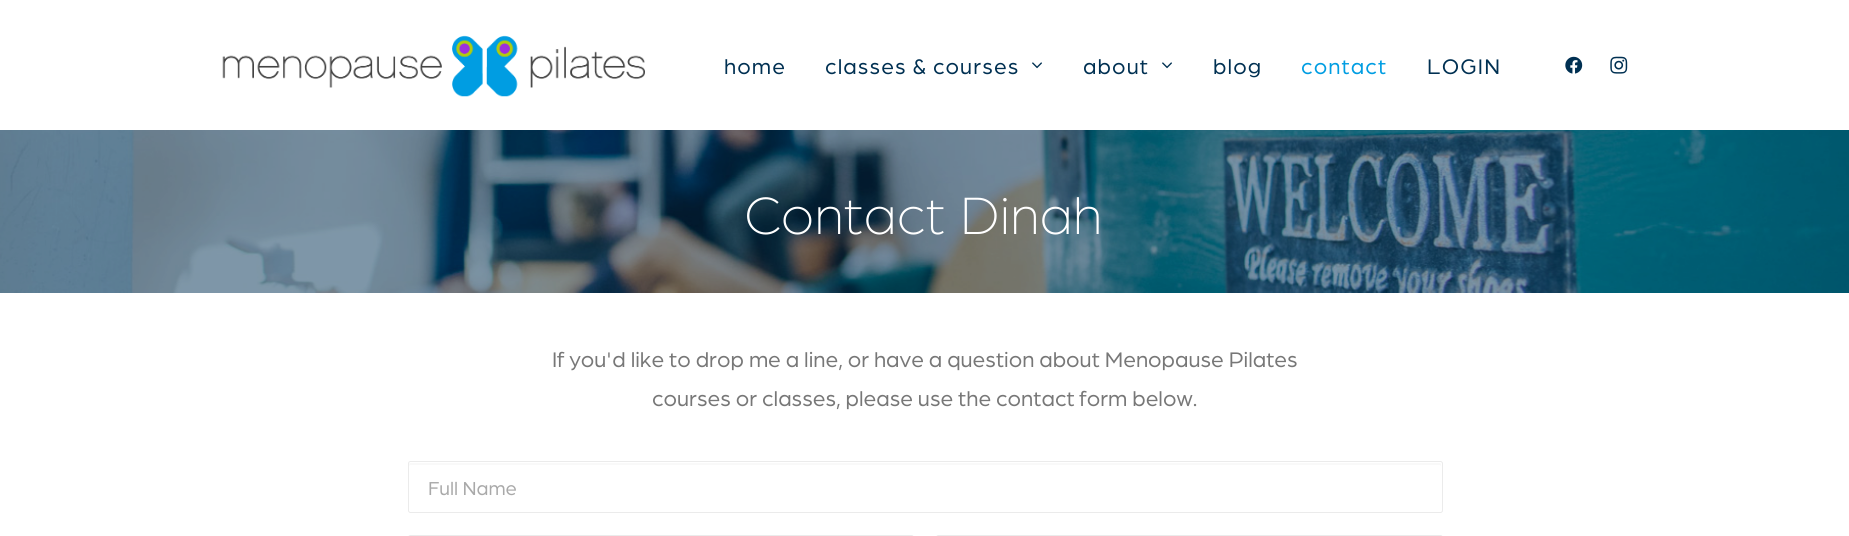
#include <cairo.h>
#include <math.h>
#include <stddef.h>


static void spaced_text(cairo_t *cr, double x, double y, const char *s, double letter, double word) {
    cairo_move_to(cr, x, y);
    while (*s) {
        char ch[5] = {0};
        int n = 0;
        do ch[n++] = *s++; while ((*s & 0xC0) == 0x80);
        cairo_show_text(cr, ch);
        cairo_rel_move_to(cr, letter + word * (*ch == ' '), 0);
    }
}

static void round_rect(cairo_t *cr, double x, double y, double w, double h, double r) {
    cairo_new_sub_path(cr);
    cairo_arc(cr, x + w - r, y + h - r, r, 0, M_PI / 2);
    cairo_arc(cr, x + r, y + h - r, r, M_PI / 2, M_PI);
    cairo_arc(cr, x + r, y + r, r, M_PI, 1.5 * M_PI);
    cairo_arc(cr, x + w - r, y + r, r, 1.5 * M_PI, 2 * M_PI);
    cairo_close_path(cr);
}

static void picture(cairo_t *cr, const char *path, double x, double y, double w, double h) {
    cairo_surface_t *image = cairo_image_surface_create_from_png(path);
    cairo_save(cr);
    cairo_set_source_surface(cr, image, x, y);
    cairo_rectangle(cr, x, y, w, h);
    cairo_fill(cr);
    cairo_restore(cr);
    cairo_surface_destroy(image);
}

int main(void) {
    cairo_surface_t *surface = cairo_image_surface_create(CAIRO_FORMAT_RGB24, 1849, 536);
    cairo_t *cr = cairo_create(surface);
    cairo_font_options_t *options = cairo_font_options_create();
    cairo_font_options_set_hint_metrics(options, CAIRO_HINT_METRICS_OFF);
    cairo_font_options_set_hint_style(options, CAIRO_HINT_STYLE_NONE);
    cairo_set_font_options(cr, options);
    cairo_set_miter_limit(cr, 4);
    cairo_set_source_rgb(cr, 1, 1, 1);
    cairo_paint(cr);
    picture(cr, "img1.png", 222, 35, 423, 62);
    cairo_select_font_face(cr, "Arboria", CAIRO_FONT_SLANT_NORMAL, CAIRO_FONT_WEIGHT_NORMAL);
    cairo_set_font_size(cr, 22.5);
    cairo_set_source_rgb(cr, 0, 0.188, 0.322);
    spaced_text(cr, 724, 74, "home", 1.1, 0);
    spaced_text(cr, 825, 74, "classes & courses", 1.1, 0);
    picture(cr, "img2.png", 1032, 62, 10, 7);
    spaced_text(cr, 1083, 74, "about", 1.1, 0);
    picture(cr, "img2.png", 1162, 62, 10, 7);
    spaced_text(cr, 1213, 74, "blog", 1.1, 0);
    cairo_set_source_rgb(cr, 0, 0.616, 0.886);
    spaced_text(cr, 1301, 74, "contact", 1.1, 0);
    cairo_set_source_rgb(cr, 0, 0.188, 0.322);
    spaced_text(cr, 1427, 74, "LOGIN", 1.1, 0);
    picture(cr, "img3.png", 1565, 56, 18, 18);
    picture(cr, "img4.png", 1610, 56, 18, 18);
    picture(cr, "img5.png", 0, 130, 1849, 163);
    cairo_select_font_face(cr, "Arboria Light", CAIRO_FONT_SLANT_NORMAL, CAIRO_FONT_WEIGHT_NORMAL);
    cairo_set_font_size(cr, 56);
    cairo_set_source_rgb(cr, 1, 1, 1);
    cairo_move_to(cr, 744, 234);
    cairo_show_text(cr, "Contact");
    cairo_move_to(cr, 960, 234);
    cairo_show_text(cr, "Dinah");
    cairo_select_font_face(cr, "Arboria", CAIRO_FONT_SLANT_NORMAL, CAIRO_FONT_WEIGHT_NORMAL);
    cairo_set_font_size(cr, 22.5);
    cairo_set_source_rgb(cr, 0.467, 0.467, 0.467);
    cairo_move_to(cr, 552, 367);
    cairo_show_text(cr, "If you'd like to drop me a line, or have a question about Menopause Pilates");
    cairo_move_to(cr, 652, 406);
    cairo_show_text(cr, "courses or classes, please use the contact form below.");
    cairo_set_source_rgb(cr, 0.976, 0.976, 0.976);
    cairo_new_path(cr);
    cairo_move_to(cr, 410, 465);
    cairo_line_to(cr, 1440, 465);
    cairo_line_to(cr, 1441, 466);
    cairo_line_to(cr, 1441, 464);
    cairo_line_to(cr, 1440, 463);
    cairo_line_to(cr, 410, 463);
    cairo_curve_to(cr, 409, 463, 409, 465, 409, 466);
    cairo_close_path(cr);
    cairo_fill(cr);
    round_rect(cr, 408.5, 461.5, 1034, 51, 2);
    cairo_set_source_rgb(cr, 0.918, 0.918, 0.918);
    cairo_set_line_width(cr, 1);
    cairo_stroke(cr);
    cairo_set_font_size(cr, 20);
    cairo_set_source_rgb(cr, 0.663, 0.663, 0.663);
    cairo_move_to(cr, 428, 495);
    cairo_show_text(cr, "Full Name");
    round_rect(cr, 408.5, 535.5, 505, 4, 2);
    cairo_set_source_rgb(cr, 0.918, 0.918, 0.918);
    cairo_stroke(cr);
    round_rect(cr, 936.5, 535.5, 506, 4, 2);
    cairo_stroke(cr);
    cairo_surface_write_to_png(surface, "page.png");
    cairo_font_options_destroy(options);
    cairo_destroy(cr);
    cairo_surface_destroy(surface);
    return 0;
}
